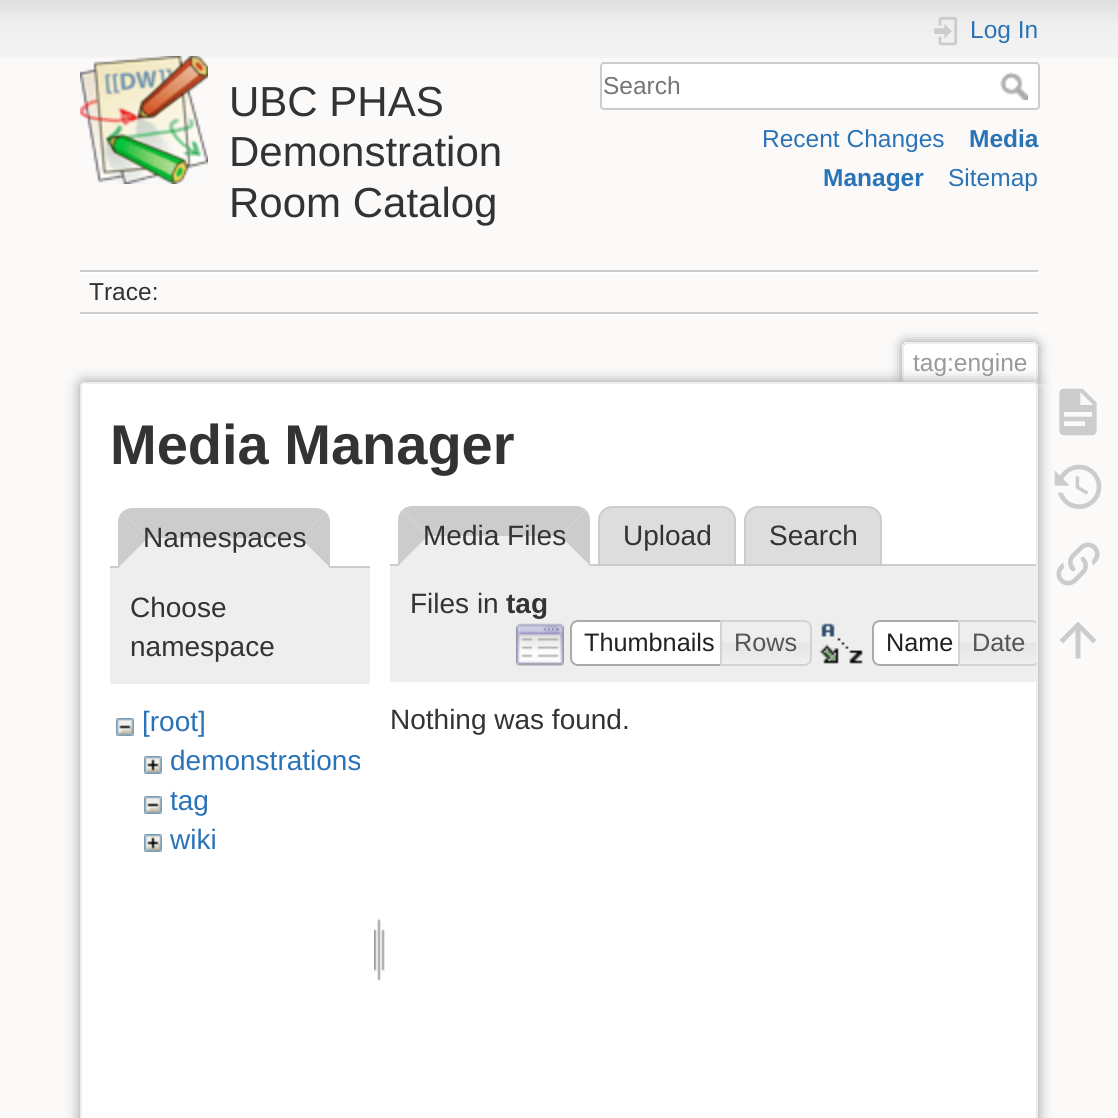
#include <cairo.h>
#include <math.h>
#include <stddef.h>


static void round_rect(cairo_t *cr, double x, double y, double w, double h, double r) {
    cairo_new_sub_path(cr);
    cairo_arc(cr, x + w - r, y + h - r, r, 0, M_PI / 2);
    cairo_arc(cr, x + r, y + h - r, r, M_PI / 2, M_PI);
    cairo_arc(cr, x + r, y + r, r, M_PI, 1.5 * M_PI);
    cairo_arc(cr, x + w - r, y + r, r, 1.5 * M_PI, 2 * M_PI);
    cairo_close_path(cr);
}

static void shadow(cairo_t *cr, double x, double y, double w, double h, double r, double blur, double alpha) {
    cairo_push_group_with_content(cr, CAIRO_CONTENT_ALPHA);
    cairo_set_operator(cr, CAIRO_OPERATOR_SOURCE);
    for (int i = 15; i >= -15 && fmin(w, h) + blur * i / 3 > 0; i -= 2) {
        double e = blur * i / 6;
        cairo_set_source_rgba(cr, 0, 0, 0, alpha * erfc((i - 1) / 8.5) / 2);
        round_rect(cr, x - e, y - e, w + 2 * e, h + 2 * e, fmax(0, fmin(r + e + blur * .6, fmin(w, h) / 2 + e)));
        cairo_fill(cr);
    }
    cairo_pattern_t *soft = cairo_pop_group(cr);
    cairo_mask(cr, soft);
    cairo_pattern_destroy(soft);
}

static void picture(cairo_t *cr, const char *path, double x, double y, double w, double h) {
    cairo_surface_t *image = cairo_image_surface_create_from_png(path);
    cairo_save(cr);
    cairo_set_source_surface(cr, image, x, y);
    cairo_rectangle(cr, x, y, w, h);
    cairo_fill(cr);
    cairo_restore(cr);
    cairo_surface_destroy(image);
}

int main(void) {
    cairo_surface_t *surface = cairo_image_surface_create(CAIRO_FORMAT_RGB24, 1118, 1118);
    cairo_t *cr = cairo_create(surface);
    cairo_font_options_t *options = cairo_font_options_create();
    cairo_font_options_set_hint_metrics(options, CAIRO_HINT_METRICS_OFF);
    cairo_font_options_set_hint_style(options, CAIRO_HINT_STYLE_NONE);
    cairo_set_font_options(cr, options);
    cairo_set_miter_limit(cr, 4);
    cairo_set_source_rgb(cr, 0.984, 0.98, 0.976);
    cairo_paint(cr);
    picture(cr, "img1.png", 0, 0, 1118, 58);
    picture(cr, "img2.png", 80, 56, 128, 128);
    cairo_select_font_face(cr, "Liberation Sans", CAIRO_FONT_SLANT_NORMAL, CAIRO_FONT_WEIGHT_NORMAL);
    cairo_set_font_size(cr, 42);
    cairo_set_source_rgb(cr, 0.2, 0.2, 0.2);
    cairo_move_to(cr, 229, 116);
    cairo_show_text(cr, "UBC PHAS");
    cairo_move_to(cr, 229, 166);
    cairo_show_text(cr, "Demonstration");
    cairo_move_to(cr, 229, 217);
    cairo_show_text(cr, "Room Catalog");
    picture(cr, "img3.png", 934, 16, 24, 30);
    cairo_set_font_size(cr, 24.5);
    cairo_set_source_rgb(cr, 0.169, 0.451, 0.718);
    cairo_move_to(cr, 970, 38);
    cairo_show_text(cr, "Log In");
    cairo_set_source_rgb(cr, 1, 1, 1);
    round_rect(cr, 601, 63, 438, 46, 3);
    cairo_fill_preserve(cr);
    cairo_set_source_rgb(cr, 0.8, 0.8, 0.8);
    cairo_stroke(cr);
    cairo_set_source_rgb(cr, 0.459, 0.459, 0.459);
    cairo_move_to(cr, 603, 94);
    cairo_show_text(cr, "Search");
    picture(cr, "img4.png", 1000, 72, 28, 28);
    cairo_set_source_rgb(cr, 0.169, 0.451, 0.718);
    cairo_move_to(cr, 762, 147);
    cairo_show_text(cr, "Recent Changes");
    cairo_select_font_face(cr, "Liberation Sans", CAIRO_FONT_SLANT_NORMAL, CAIRO_FONT_WEIGHT_BOLD);
    cairo_move_to(cr, 969, 147);
    cairo_show_text(cr, "Media");
    cairo_move_to(cr, 823, 186);
    cairo_show_text(cr, "Manager");
    cairo_select_font_face(cr, "Liberation Sans", CAIRO_FONT_SLANT_NORMAL, CAIRO_FONT_WEIGHT_NORMAL);
    cairo_move_to(cr, 948, 186);
    cairo_show_text(cr, "Sitemap");
    cairo_set_source_rgb(cr, 0.8, 0.8, 0.8);
    cairo_rectangle(cr, 80, 270, 958, 2);
    cairo_fill(cr);
    cairo_set_source_rgb(cr, 1, 1, 1);
    cairo_rectangle(cr, 80, 314, 958, 2);
    cairo_fill(cr);
    cairo_rectangle(cr, 80, 272, 958, 2);
    cairo_fill(cr);
    cairo_set_source_rgb(cr, 0.8, 0.8, 0.8);
    cairo_rectangle(cr, 80, 312, 958, 2);
    cairo_fill(cr);
    cairo_set_source_rgb(cr, 0.2, 0.2, 0.2);
    cairo_move_to(cr, 89, 300);
    cairo_show_text(cr, "Trace:");
    cairo_save(cr);
    cairo_rectangle(cr, 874, 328, 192, 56);
    cairo_clip(cr);
    cairo_set_source_rgb(cr, 0.6, 0.6, 0.6);
    shadow(cr, 902, 342, 136, 42, 4, 6, 1);
    cairo_restore(cr);
    cairo_set_source_rgb(cr, 1, 1, 1);
    cairo_new_path(cr);
    cairo_move_to(cr, 906, 344);
    cairo_line_to(cr, 1034, 344);
    cairo_curve_to(cr, 1035, 344, 1036, 345, 1036, 346);
    cairo_line_to(cr, 1036, 384);
    cairo_line_to(cr, 904, 384);
    cairo_line_to(cr, 904, 346);
    cairo_curve_to(cr, 904, 345, 905, 344, 906, 344);
    cairo_close_path(cr);
    cairo_fill(cr);
    cairo_set_source_rgb(cr, 0.933, 0.933, 0.933);
    cairo_rectangle(cr, 904, 342, 132, 2);
    cairo_fill(cr);
    cairo_rectangle(cr, 1036, 344, 2, 40);
    cairo_fill(cr);
    cairo_rectangle(cr, 902, 344, 2, 40);
    cairo_fill(cr);
    cairo_set_source_rgb(cr, 0.6, 0.6, 0.6);
    cairo_move_to(cr, 913, 371);
    cairo_show_text(cr, "tag:engine");
    cairo_set_source_rgb(cr, 0.6, 0.6, 0.6);
    shadow(cr, 80, 382, 958, 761, 4, 7, 1);
    cairo_set_source_rgb(cr, 1, 1, 1);
    round_rect(cr, 81, 383, 956, 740, 3);
    cairo_fill_preserve(cr);
    cairo_set_source_rgb(cr, 0.933, 0.933, 0.933);
    cairo_stroke(cr);
    cairo_select_font_face(cr, "Liberation Sans", CAIRO_FONT_SLANT_NORMAL, CAIRO_FONT_WEIGHT_BOLD);
    cairo_set_font_size(cr, 56);
    cairo_set_source_rgb(cr, 0.2, 0.2, 0.2);
    cairo_move_to(cr, 110, 464);
    cairo_show_text(cr, "Media Manager");
    cairo_set_source_rgb(cr, 0.8, 0.8, 0.8);
    cairo_new_path(cr);
    cairo_move_to(cr, 132, 508);
    cairo_line_to(cr, 316, 508);
    cairo_curve_to(cr, 320, 508, 324, 510, 326, 512);
    cairo_line_to(cr, 300, 538);
    cairo_line_to(cr, 148, 538);
    cairo_line_to(cr, 122, 512);
    cairo_curve_to(cr, 124, 510, 128, 508, 132, 508);
    cairo_close_path(cr);
    cairo_fill(cr);
    cairo_rectangle(cr, 110, 566, 260, 2);
    cairo_fill(cr);
    cairo_new_path(cr);
    cairo_move_to(cr, 326, 512);
    cairo_line_to(cr, 300, 538);
    cairo_line_to(cr, 330, 568);
    cairo_line_to(cr, 330, 522);
    cairo_curve_to(cr, 330, 518, 328, 514, 326, 512);
    cairo_close_path(cr);
    cairo_fill(cr);
    cairo_set_source_rgb(cr, 0.933, 0.933, 0.933);
    cairo_new_path(cr);
    cairo_move_to(cr, 330, 568);
    cairo_line_to(cr, 300, 538);
    cairo_line_to(cr, 148, 538);
    cairo_line_to(cr, 118, 568);
    cairo_close_path(cr);
    cairo_fill(cr);
    cairo_set_source_rgb(cr, 0.8, 0.8, 0.8);
    cairo_new_path(cr);
    cairo_move_to(cr, 118, 568);
    cairo_line_to(cr, 118, 522);
    cairo_curve_to(cr, 118, 518, 120, 514, 122, 512);
    cairo_line_to(cr, 148, 538);
    cairo_close_path(cr);
    cairo_fill(cr);
    cairo_select_font_face(cr, "Liberation Sans", CAIRO_FONT_SLANT_NORMAL, CAIRO_FONT_WEIGHT_NORMAL);
    cairo_set_font_size(cr, 28);
    cairo_set_source_rgb(cr, 0.2, 0.2, 0.2);
    cairo_move_to(cr, 143, 547);
    cairo_show_text(cr, "Namespaces");
    cairo_set_source_rgb(cr, 0.933, 0.933, 0.933);
    cairo_rectangle(cr, 110, 568, 260, 116);
    cairo_fill(cr);
    cairo_set_source_rgb(cr, 0.2, 0.2, 0.2);
    cairo_move_to(cr, 130, 617);
    cairo_show_text(cr, "Choose");
    cairo_move_to(cr, 130, 656);
    cairo_show_text(cr, "namespace");
    picture(cr, "img5.png", 116, 718, 18, 18);
    cairo_set_source_rgb(cr, 0.169, 0.451, 0.718);
    cairo_move_to(cr, 142, 731);
    cairo_show_text(cr, "[root]");
    picture(cr, "img6.png", 144, 756, 18, 18);
    cairo_move_to(cr, 170, 770);
    cairo_show_text(cr, "demonstrations");
    picture(cr, "img5.png", 144, 796, 18, 18);
    cairo_move_to(cr, 170, 810);
    cairo_show_text(cr, "tag");
    picture(cr, "img6.png", 144, 834, 18, 18);
    cairo_move_to(cr, 170, 849);
    cairo_show_text(cr, "wiki");
    picture(cr, "img7.png", 374, 918, 11, 63);
    cairo_set_source_rgb(cr, 0.8, 0.8, 0.8);
    cairo_new_path(cr);
    cairo_move_to(cr, 412, 506);
    cairo_line_to(cr, 576, 506);
    cairo_curve_to(cr, 580, 506, 584, 508, 586, 510);
    cairo_line_to(cr, 560, 536);
    cairo_line_to(cr, 428, 536);
    cairo_line_to(cr, 402, 510);
    cairo_curve_to(cr, 404, 508, 408, 506, 412, 506);
    cairo_close_path(cr);
    cairo_fill(cr);
    cairo_set_source_rgb(cr, 0.867, 0.867, 0.867);
    cairo_new_path(cr);
    cairo_move_to(cr, 612, 507);
    cairo_line_to(cr, 722, 507);
    cairo_curve_to(cr, 729, 507, 735, 513, 735, 520);
    cairo_line_to(cr, 735, 565);
    cairo_line_to(cr, 599, 565);
    cairo_line_to(cr, 599, 520);
    cairo_curve_to(cr, 599, 513, 605, 507, 612, 507);
    cairo_close_path(cr);
    cairo_fill_preserve(cr);
    cairo_set_source_rgb(cr, 0.8, 0.8, 0.8);
    cairo_stroke(cr);
    cairo_set_source_rgb(cr, 0.867, 0.867, 0.867);
    cairo_new_path(cr);
    cairo_move_to(cr, 758, 507);
    cairo_line_to(cr, 868, 507);
    cairo_curve_to(cr, 875, 507, 881, 513, 881, 520);
    cairo_line_to(cr, 881, 565);
    cairo_line_to(cr, 745, 565);
    cairo_line_to(cr, 745, 520);
    cairo_curve_to(cr, 745, 513, 751, 507, 758, 507);
    cairo_close_path(cr);
    cairo_fill_preserve(cr);
    cairo_set_source_rgb(cr, 0.8, 0.8, 0.8);
    cairo_stroke(cr);
    cairo_rectangle(cr, 390, 564, 646, 2);
    cairo_fill(cr);
    cairo_new_path(cr);
    cairo_move_to(cr, 586, 510);
    cairo_line_to(cr, 560, 536);
    cairo_line_to(cr, 590, 566);
    cairo_line_to(cr, 590, 520);
    cairo_curve_to(cr, 590, 516, 588, 512, 586, 510);
    cairo_close_path(cr);
    cairo_fill(cr);
    cairo_set_source_rgb(cr, 0.933, 0.933, 0.933);
    cairo_new_path(cr);
    cairo_move_to(cr, 590, 566);
    cairo_line_to(cr, 560, 536);
    cairo_line_to(cr, 428, 536);
    cairo_line_to(cr, 398, 566);
    cairo_close_path(cr);
    cairo_fill(cr);
    cairo_set_source_rgb(cr, 0.8, 0.8, 0.8);
    cairo_new_path(cr);
    cairo_move_to(cr, 398, 566);
    cairo_line_to(cr, 398, 520);
    cairo_curve_to(cr, 398, 516, 400, 512, 402, 510);
    cairo_line_to(cr, 428, 536);
    cairo_close_path(cr);
    cairo_fill(cr);
    cairo_set_source_rgb(cr, 0.2, 0.2, 0.2);
    cairo_move_to(cr, 423, 545);
    cairo_show_text(cr, "Media Files");
    cairo_move_to(cr, 623, 545);
    cairo_show_text(cr, "Upload");
    cairo_move_to(cr, 769, 545);
    cairo_show_text(cr, "Search");
    cairo_set_source_rgb(cr, 0.933, 0.933, 0.933);
    cairo_rectangle(cr, 390, 566, 646, 116);
    cairo_fill(cr);
    cairo_set_source_rgb(cr, 0.2, 0.2, 0.2);
    cairo_move_to(cr, 410, 613);
    cairo_show_text(cr, "Files in");
    cairo_select_font_face(cr, "Liberation Sans", CAIRO_FONT_SLANT_NORMAL, CAIRO_FONT_WEIGHT_BOLD);
    cairo_move_to(cr, 506, 613);
    cairo_show_text(cr, "tag");
    picture(cr, "img8.png", 516, 623, 48, 43);
    cairo_set_source_rgb(cr, 1, 1, 1);
    cairo_new_path(cr);
    cairo_move_to(cr, 578, 620);
    cairo_line_to(cr, 730, 620);
    cairo_line_to(cr, 730, 666);
    cairo_line_to(cr, 578, 666);
    cairo_curve_to(cr, 573.5, 666, 570, 662.5, 570, 658);
    cairo_line_to(cr, 570, 628);
    cairo_curve_to(cr, 570, 623.5, 573.5, 620, 578, 620);
    cairo_close_path(cr);
    cairo_fill(cr);
    picture(cr, "img9.png", 570, 620, 6, 46);
    cairo_new_path(cr);
    cairo_move_to(cr, 578, 621);
    cairo_line_to(cr, 729, 621);
    cairo_line_to(cr, 729, 665);
    cairo_line_to(cr, 578, 665);
    cairo_curve_to(cr, 574, 665, 571, 662, 571, 658);
    cairo_line_to(cr, 571, 628);
    cairo_curve_to(cr, 571, 624, 574, 621, 578, 621);
    cairo_close_path(cr);
    cairo_set_source_rgb(cr, 0.667, 0.667, 0.667);
    cairo_stroke(cr);
    cairo_select_font_face(cr, "Liberation Sans", CAIRO_FONT_SLANT_NORMAL, CAIRO_FONT_WEIGHT_NORMAL);
    cairo_set_font_size(cr, 25.25);
    cairo_set_source_rgb(cr, 0.129, 0.129, 0.129);
    cairo_move_to(cr, 584, 651);
    cairo_show_text(cr, "Thumbnails");
    picture(cr, "img10.png", 722, 620, 90, 46);
    cairo_new_path(cr);
    cairo_move_to(cr, 721, 621);
    cairo_line_to(cr, 804, 621);
    cairo_curve_to(cr, 808, 621, 811, 624, 811, 628);
    cairo_line_to(cr, 811, 658);
    cairo_curve_to(cr, 811, 662, 808, 665, 804, 665);
    cairo_line_to(cr, 721, 665);
    cairo_close_path(cr);
    cairo_set_source_rgb(cr, 0.827, 0.827, 0.827);
    cairo_stroke(cr);
    cairo_set_source_rgb(cr, 0.333, 0.333, 0.333);
    cairo_move_to(cr, 734, 651);
    cairo_show_text(cr, "Rows");
    picture(cr, "img11.png", 819, 623, 44, 41);
    cairo_set_source_rgb(cr, 1, 1, 1);
    cairo_new_path(cr);
    cairo_move_to(cr, 880, 620);
    cairo_line_to(cr, 968, 620);
    cairo_line_to(cr, 968, 666);
    cairo_line_to(cr, 880, 666);
    cairo_curve_to(cr, 875.5, 666, 872, 662.5, 872, 658);
    cairo_line_to(cr, 872, 628);
    cairo_curve_to(cr, 872, 623.5, 875.5, 620, 880, 620);
    cairo_close_path(cr);
    cairo_fill(cr);
    picture(cr, "img9.png", 872, 620, 6, 46);
    cairo_new_path(cr);
    cairo_move_to(cr, 880, 621);
    cairo_line_to(cr, 967, 621);
    cairo_line_to(cr, 967, 665);
    cairo_line_to(cr, 880, 665);
    cairo_curve_to(cr, 876, 665, 873, 662, 873, 658);
    cairo_line_to(cr, 873, 628);
    cairo_curve_to(cr, 873, 624, 876, 621, 880, 621);
    cairo_close_path(cr);
    cairo_set_source_rgb(cr, 0.667, 0.667, 0.667);
    cairo_stroke(cr);
    cairo_set_source_rgb(cr, 0.129, 0.129, 0.129);
    cairo_move_to(cr, 886, 651);
    cairo_show_text(cr, "Name");
    picture(cr, "img12.png", 960, 620, 76, 46);
    cairo_set_source_rgb(cr, 0.827, 0.827, 0.827);
    cairo_new_path(cr);
    cairo_move_to(cr, 958, 620);
    cairo_line_to(cr, 958, 666);
    cairo_line_to(cr, 1032, 666);
    cairo_curve_to(cr, 1033, 666, 1035, 666, 1036, 665);
    cairo_line_to(cr, 1036, 662);
    cairo_curve_to(cr, 1035, 663, 1034, 664, 1032, 664);
    cairo_line_to(cr, 960, 664);
    cairo_line_to(cr, 960, 622);
    cairo_line_to(cr, 1032, 622);
    cairo_curve_to(cr, 1034, 622, 1035, 623, 1036, 624);
    cairo_line_to(cr, 1036, 621);
    cairo_line_to(cr, 1032, 620);
    cairo_close_path(cr);
    cairo_fill(cr);
    cairo_set_source_rgb(cr, 0.333, 0.333, 0.333);
    cairo_move_to(cr, 972, 651);
    cairo_show_text(cr, "Date");
    cairo_set_font_size(cr, 28);
    cairo_set_source_rgb(cr, 0.2, 0.2, 0.2);
    cairo_move_to(cr, 390, 729);
    cairo_show_text(cr, "Nothing was found.");
    picture(cr, "img13.png", 1059, 388, 38, 48);
    picture(cr, "img14.png", 1054, 464, 48, 45);
    picture(cr, "img15.png", 1056, 542, 44, 44);
    cairo_set_source_rgb(cr, 0.8, 0.8, 0.8);
    cairo_new_path(cr);
    cairo_move_to(cr, 1080.5, 658.5);
    cairo_line_to(cr, 1075.5, 658.5);
    cairo_line_to(cr, 1075.5, 630.5);
    cairo_line_to(cr, 1063, 643.5);
    cairo_line_to(cr, 1059.5, 640);
    cairo_line_to(cr, 1078, 621.5);
    cairo_line_to(cr, 1096.5, 640);
    cairo_line_to(cr, 1093, 643.5);
    cairo_line_to(cr, 1080.5, 630.5);
    cairo_close_path(cr);
    cairo_fill(cr);
    cairo_surface_write_to_png(surface, "page.png");
    cairo_font_options_destroy(options);
    cairo_destroy(cr);
    cairo_surface_destroy(surface);
    return 0;
}
